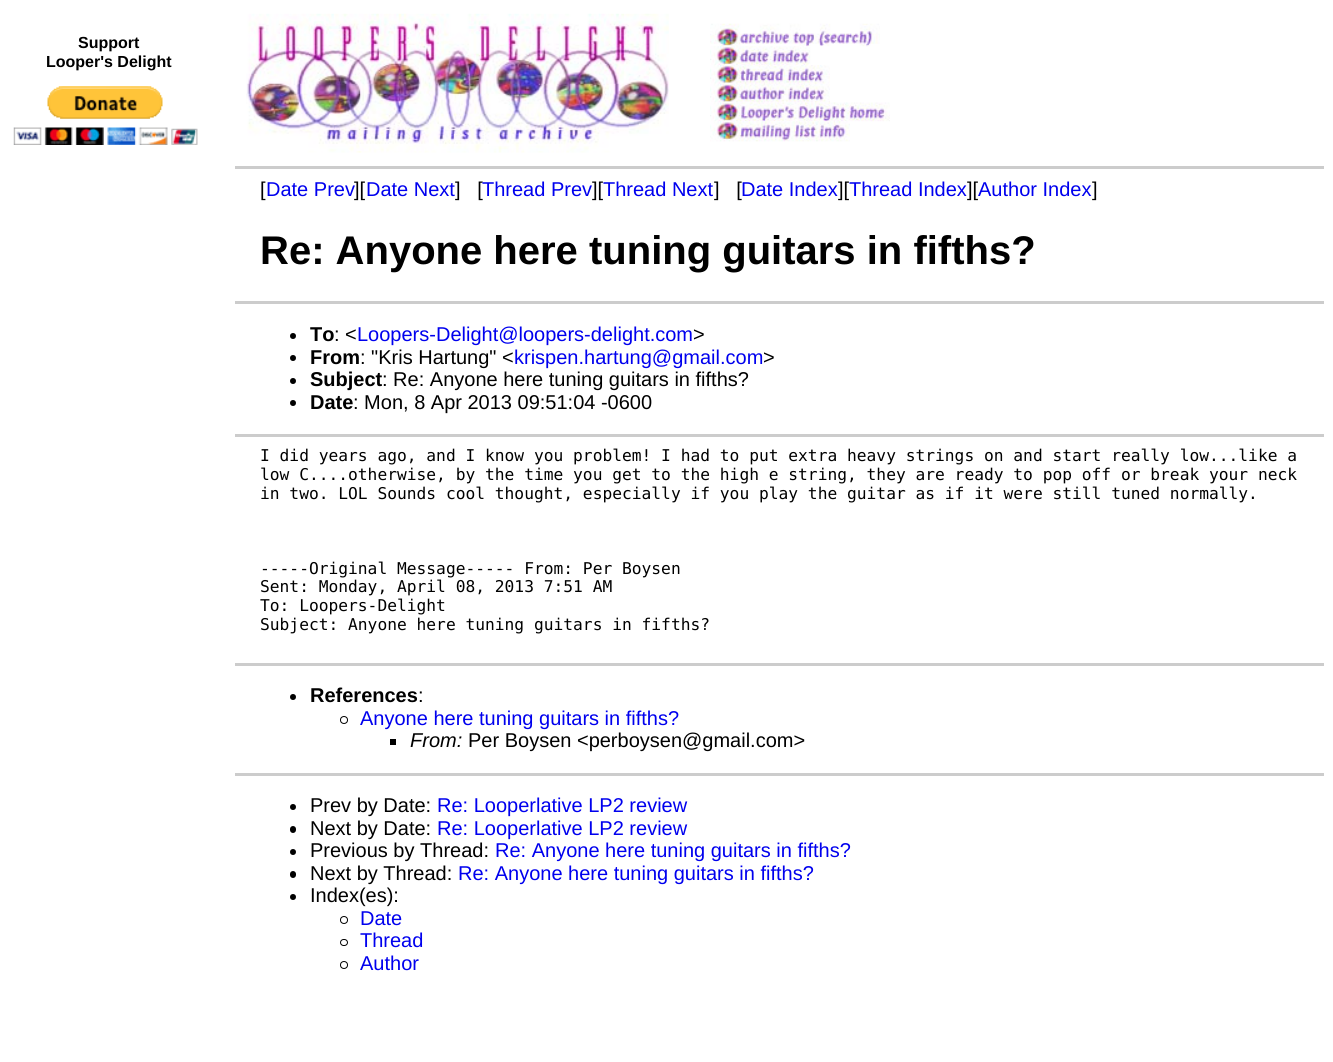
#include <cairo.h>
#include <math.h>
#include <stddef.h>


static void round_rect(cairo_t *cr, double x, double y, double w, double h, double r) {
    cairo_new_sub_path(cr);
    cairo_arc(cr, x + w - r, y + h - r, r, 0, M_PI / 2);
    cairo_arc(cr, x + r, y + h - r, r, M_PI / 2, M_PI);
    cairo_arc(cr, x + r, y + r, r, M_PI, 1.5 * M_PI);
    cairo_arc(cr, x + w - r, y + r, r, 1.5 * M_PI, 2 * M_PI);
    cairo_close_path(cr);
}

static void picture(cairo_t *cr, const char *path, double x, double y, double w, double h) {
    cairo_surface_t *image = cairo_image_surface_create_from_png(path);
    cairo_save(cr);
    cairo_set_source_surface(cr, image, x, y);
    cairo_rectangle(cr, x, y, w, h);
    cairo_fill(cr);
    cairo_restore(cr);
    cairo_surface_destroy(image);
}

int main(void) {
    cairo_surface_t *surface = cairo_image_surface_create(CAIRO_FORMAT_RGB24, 1333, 1062);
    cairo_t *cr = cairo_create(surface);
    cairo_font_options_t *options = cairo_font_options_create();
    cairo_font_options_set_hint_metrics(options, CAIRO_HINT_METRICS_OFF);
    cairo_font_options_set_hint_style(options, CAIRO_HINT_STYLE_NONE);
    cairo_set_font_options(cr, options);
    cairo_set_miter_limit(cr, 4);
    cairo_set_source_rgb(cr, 1, 1, 1);
    cairo_paint(cr);
    cairo_select_font_face(cr, "Liberation Sans", CAIRO_FONT_SLANT_NORMAL, CAIRO_FONT_WEIGHT_BOLD);
    cairo_set_font_size(cr, 16);
    cairo_set_source_rgb(cr, 0, 0, 0);
    cairo_move_to(cr, 78, 48);
    cairo_show_text(cr, "Support");
    cairo_move_to(cr, 46, 67);
    cairo_show_text(cr, "Looper's Delight");
    picture(cr, "img1.png", 13, 86, 185, 59);
    picture(cr, "img2.png", 246, 13, 423, 140);
    picture(cr, "img3.png", 710, 23, 170, 24);
    picture(cr, "img4.png", 710, 46, 113, 19);
    picture(cr, "img5.png", 710, 65, 120, 19);
    picture(cr, "img6.png", 710, 83, 120, 20);
    picture(cr, "img7.png", 710, 102, 180, 20);
    picture(cr, "img8.png", 710, 121, 140, 21);
    cairo_set_source_rgb(cr, 0.8, 0.8, 0.8);
    cairo_rectangle(cr, 235, 166, 1089, 3);
    cairo_fill(cr);
    cairo_select_font_face(cr, "Liberation Sans", CAIRO_FONT_SLANT_NORMAL, CAIRO_FONT_WEIGHT_NORMAL);
    cairo_set_font_size(cr, 20);
    cairo_set_source_rgb(cr, 0, 0, 0);
    cairo_move_to(cr, 260, 196);
    cairo_show_text(cr, "[");
    cairo_set_source_rgb(cr, 0, 0, 0.933);
    cairo_move_to(cr, 266, 196);
    cairo_show_text(cr, "Date Prev");
    cairo_set_source_rgb(cr, 0, 0, 0);
    cairo_move_to(cr, 354, 196);
    cairo_show_text(cr, "][");
    cairo_set_source_rgb(cr, 0, 0, 0.933);
    cairo_move_to(cr, 366, 196);
    cairo_show_text(cr, "Date Next");
    cairo_set_source_rgb(cr, 0, 0, 0);
    cairo_move_to(cr, 455, 196);
    cairo_show_text(cr, "]   [");
    cairo_set_source_rgb(cr, 0, 0, 0.933);
    cairo_move_to(cr, 482, 196);
    cairo_show_text(cr, "Thread Prev");
    cairo_set_source_rgb(cr, 0, 0, 0);
    cairo_move_to(cr, 592, 196);
    cairo_show_text(cr, "][");
    cairo_set_source_rgb(cr, 0, 0, 0.933);
    cairo_move_to(cr, 603, 196);
    cairo_show_text(cr, "Thread Next");
    cairo_set_source_rgb(cr, 0, 0, 0);
    cairo_move_to(cr, 714, 196);
    cairo_show_text(cr, "]   [");
    cairo_set_source_rgb(cr, 0, 0, 0.933);
    cairo_move_to(cr, 741, 196);
    cairo_show_text(cr, "Date Index");
    cairo_set_source_rgb(cr, 0, 0, 0);
    cairo_move_to(cr, 838, 196);
    cairo_show_text(cr, "][");
    cairo_set_source_rgb(cr, 0, 0, 0.933);
    cairo_move_to(cr, 849, 196);
    cairo_show_text(cr, "Thread Index");
    cairo_set_source_rgb(cr, 0, 0, 0);
    cairo_move_to(cr, 967, 196);
    cairo_show_text(cr, "][");
    cairo_set_source_rgb(cr, 0, 0, 0.933);
    cairo_move_to(cr, 978, 196);
    cairo_show_text(cr, "Author Index");
    cairo_set_source_rgb(cr, 0, 0, 0);
    cairo_move_to(cr, 1092, 196);
    cairo_show_text(cr, "]");
    cairo_select_font_face(cr, "Liberation Sans", CAIRO_FONT_SLANT_NORMAL, CAIRO_FONT_WEIGHT_BOLD);
    cairo_set_font_size(cr, 40);
    cairo_move_to(cr, 260, 264);
    cairo_show_text(cr, "Re: Anyone here tuning guitars in fifths?");
    cairo_set_source_rgb(cr, 0.8, 0.8, 0.8);
    cairo_rectangle(cr, 235, 301, 1089, 3);
    cairo_fill(cr);
    cairo_set_source_rgb(cr, 0, 0, 0);
    cairo_arc(cr, 293, 336, 3, 0, 2 * M_PI);
    cairo_fill(cr);
    cairo_set_font_size(cr, 20);
    cairo_move_to(cr, 310, 341);
    cairo_show_text(cr, "To");
    cairo_select_font_face(cr, "Liberation Sans", CAIRO_FONT_SLANT_NORMAL, CAIRO_FONT_WEIGHT_NORMAL);
    cairo_move_to(cr, 334, 341);
    cairo_show_text(cr, ": <");
    cairo_set_source_rgb(cr, 0, 0, 0.933);
    cairo_move_to(cr, 357, 341);
    cairo_show_text(cr, "Loopers-Delight@loopers-delight.com");
    cairo_set_source_rgb(cr, 0, 0, 0);
    cairo_move_to(cr, 693, 341);
    cairo_show_text(cr, ">");
    cairo_new_path(cr);
    cairo_arc(cr, 293, 358, 3, 0, 2 * M_PI);
    cairo_fill(cr);
    cairo_select_font_face(cr, "Liberation Sans", CAIRO_FONT_SLANT_NORMAL, CAIRO_FONT_WEIGHT_BOLD);
    cairo_move_to(cr, 310, 364);
    cairo_show_text(cr, "From");
    cairo_select_font_face(cr, "Liberation Sans", CAIRO_FONT_SLANT_NORMAL, CAIRO_FONT_WEIGHT_NORMAL);
    cairo_move_to(cr, 360, 364);
    cairo_show_text(cr, ": \"Kris Hartung\" <");
    cairo_set_source_rgb(cr, 0, 0, 0.933);
    cairo_move_to(cr, 514, 364);
    cairo_show_text(cr, "krispen.hartung@gmail.com");
    cairo_set_source_rgb(cr, 0, 0, 0);
    cairo_move_to(cr, 763, 364);
    cairo_show_text(cr, ">");
    cairo_new_path(cr);
    cairo_arc(cr, 293, 381, 3, 0, 2 * M_PI);
    cairo_fill(cr);
    cairo_select_font_face(cr, "Liberation Sans", CAIRO_FONT_SLANT_NORMAL, CAIRO_FONT_WEIGHT_BOLD);
    cairo_move_to(cr, 310, 386);
    cairo_show_text(cr, "Subject");
    cairo_select_font_face(cr, "Liberation Sans", CAIRO_FONT_SLANT_NORMAL, CAIRO_FONT_WEIGHT_NORMAL);
    cairo_move_to(cr, 382, 386);
    cairo_show_text(cr, ": Re: Anyone here tuning guitars in fifths?");
    cairo_new_path(cr);
    cairo_arc(cr, 293, 403, 3, 0, 2 * M_PI);
    cairo_fill(cr);
    cairo_select_font_face(cr, "Liberation Sans", CAIRO_FONT_SLANT_NORMAL, CAIRO_FONT_WEIGHT_BOLD);
    cairo_move_to(cr, 310, 409);
    cairo_show_text(cr, "Date");
    cairo_select_font_face(cr, "Liberation Sans", CAIRO_FONT_SLANT_NORMAL, CAIRO_FONT_WEIGHT_NORMAL);
    cairo_move_to(cr, 353, 409);
    cairo_show_text(cr, ": Mon, 8 Apr 2013 09:51:04 -0600");
    cairo_set_source_rgb(cr, 0.8, 0.8, 0.8);
    cairo_rectangle(cr, 235, 434, 1089, 3);
    cairo_fill(cr);
    cairo_select_font_face(cr, "DejaVu Sans Mono", CAIRO_FONT_SLANT_NORMAL, CAIRO_FONT_WEIGHT_NORMAL);
    cairo_set_font_size(cr, 16.25);
    cairo_set_source_rgb(cr, 0, 0, 0);
    cairo_move_to(cr, 260, 461);
    cairo_show_text(cr, "I did years ago, and I know you problem! I had to put extra heavy strings on and start really low...like a");
    cairo_move_to(cr, 260, 480);
    cairo_show_text(cr, "low C....otherwise, by the time you get to the high e string, they are ready to pop off or break your neck");
    cairo_move_to(cr, 260, 499);
    cairo_show_text(cr, "in two. LOL Sounds cool thought, especially if you play the guitar as if it were still tuned normally.");
    cairo_move_to(cr, 260, 574);
    cairo_show_text(cr, "-----Original Message----- From: Per Boysen");
    cairo_move_to(cr, 260, 592);
    cairo_show_text(cr, "Sent: Monday, April 08, 2013 7:51 AM");
    cairo_move_to(cr, 260, 611);
    cairo_show_text(cr, "To: Loopers-Delight");
    cairo_move_to(cr, 260, 630);
    cairo_show_text(cr, "Subject: Anyone here tuning guitars in fifths?");
    cairo_set_source_rgb(cr, 0.8, 0.8, 0.8);
    cairo_rectangle(cr, 235, 663, 1089, 3);
    cairo_fill(cr);
    cairo_set_source_rgb(cr, 0, 0, 0);
    cairo_arc(cr, 293, 697, 3, 0, 2 * M_PI);
    cairo_fill(cr);
    cairo_select_font_face(cr, "Liberation Sans", CAIRO_FONT_SLANT_NORMAL, CAIRO_FONT_WEIGHT_BOLD);
    cairo_set_font_size(cr, 20);
    cairo_move_to(cr, 310, 702);
    cairo_show_text(cr, "References");
    cairo_select_font_face(cr, "Liberation Sans", CAIRO_FONT_SLANT_NORMAL, CAIRO_FONT_WEIGHT_NORMAL);
    cairo_move_to(cr, 418, 702);
    cairo_show_text(cr, ":");
    cairo_new_path(cr);
    cairo_arc(cr, 344, 720, 3.5, 0, 2 * M_PI);
    cairo_set_line_width(cr, 1);
    cairo_stroke(cr);
    cairo_set_source_rgb(cr, 0, 0, 0.933);
    cairo_move_to(cr, 360, 725);
    cairo_show_text(cr, "Anyone here tuning guitars in fifths?");
    cairo_set_source_rgb(cr, 0, 0, 0);
    cairo_rectangle(cr, 390, 739, 6, 6);
    cairo_fill(cr);
    cairo_select_font_face(cr, "Liberation Sans", CAIRO_FONT_SLANT_ITALIC, CAIRO_FONT_WEIGHT_NORMAL);
    cairo_move_to(cr, 410, 747);
    cairo_show_text(cr, "From:");
    cairo_select_font_face(cr, "Liberation Sans", CAIRO_FONT_SLANT_NORMAL, CAIRO_FONT_WEIGHT_NORMAL);
    cairo_move_to(cr, 468, 747);
    cairo_show_text(cr, "Per Boysen <perboysen@gmail.com>");
    cairo_set_source_rgb(cr, 0.8, 0.8, 0.8);
    cairo_rectangle(cr, 235, 773, 1089, 3);
    cairo_fill(cr);
    cairo_set_source_rgb(cr, 0, 0, 0);
    cairo_arc(cr, 293, 807, 3, 0, 2 * M_PI);
    cairo_fill(cr);
    cairo_move_to(cr, 310, 812);
    cairo_show_text(cr, "Prev by Date:");
    cairo_set_source_rgb(cr, 0, 0, 0.933);
    cairo_move_to(cr, 437, 812);
    cairo_show_text(cr, "Re: Looperlative LP2 review");
    cairo_set_source_rgb(cr, 0, 0, 0);
    round_rect(cr, 290, 826, 6, 7, 3);
    cairo_fill(cr);
    cairo_move_to(cr, 310, 835);
    cairo_show_text(cr, "Next by Date:");
    cairo_set_source_rgb(cr, 0, 0, 0.933);
    cairo_move_to(cr, 437, 835);
    cairo_show_text(cr, "Re: Looperlative LP2 review");
    cairo_set_source_rgb(cr, 0, 0, 0);
    cairo_new_path(cr);
    cairo_arc(cr, 293, 852, 3, 0, 2 * M_PI);
    cairo_fill(cr);
    cairo_move_to(cr, 310, 857);
    cairo_show_text(cr, "Previous by Thread:");
    cairo_set_source_rgb(cr, 0, 0, 0.933);
    cairo_move_to(cr, 495, 857);
    cairo_show_text(cr, "Re: Anyone here tuning guitars in fifths?");
    cairo_set_source_rgb(cr, 0, 0, 0);
    round_rect(cr, 290, 871, 6, 7, 3);
    cairo_fill(cr);
    cairo_move_to(cr, 310, 880);
    cairo_show_text(cr, "Next by Thread:");
    cairo_set_source_rgb(cr, 0, 0, 0.933);
    cairo_move_to(cr, 458, 880);
    cairo_show_text(cr, "Re: Anyone here tuning guitars in fifths?");
    cairo_set_source_rgb(cr, 0, 0, 0);
    cairo_new_path(cr);
    cairo_arc(cr, 293, 897, 3, 0, 2 * M_PI);
    cairo_fill(cr);
    cairo_move_to(cr, 310, 902);
    cairo_show_text(cr, "Index(es):");
    cairo_new_path(cr);
    cairo_arc(cr, 344, 920, 3.5, 0, 2 * M_PI);
    cairo_stroke(cr);
    cairo_set_source_rgb(cr, 0, 0, 0.933);
    cairo_move_to(cr, 360, 925);
    cairo_show_text(cr, "Date");
    round_rect(cr, 340.5, 939.5, 7, 6, 3);
    cairo_set_source_rgb(cr, 0, 0, 0);
    cairo_stroke(cr);
    cairo_set_source_rgb(cr, 0, 0, 0.933);
    cairo_move_to(cr, 360, 947);
    cairo_show_text(cr, "Thread");
    cairo_new_path(cr);
    cairo_arc(cr, 344, 965, 3.5, 0, 2 * M_PI);
    cairo_set_source_rgb(cr, 0, 0, 0);
    cairo_stroke(cr);
    cairo_set_source_rgb(cr, 0, 0, 0.933);
    cairo_move_to(cr, 360, 970);
    cairo_show_text(cr, "Author");
    cairo_surface_write_to_png(surface, "page.png");
    cairo_font_options_destroy(options);
    cairo_destroy(cr);
    cairo_surface_destroy(surface);
    return 0;
}
